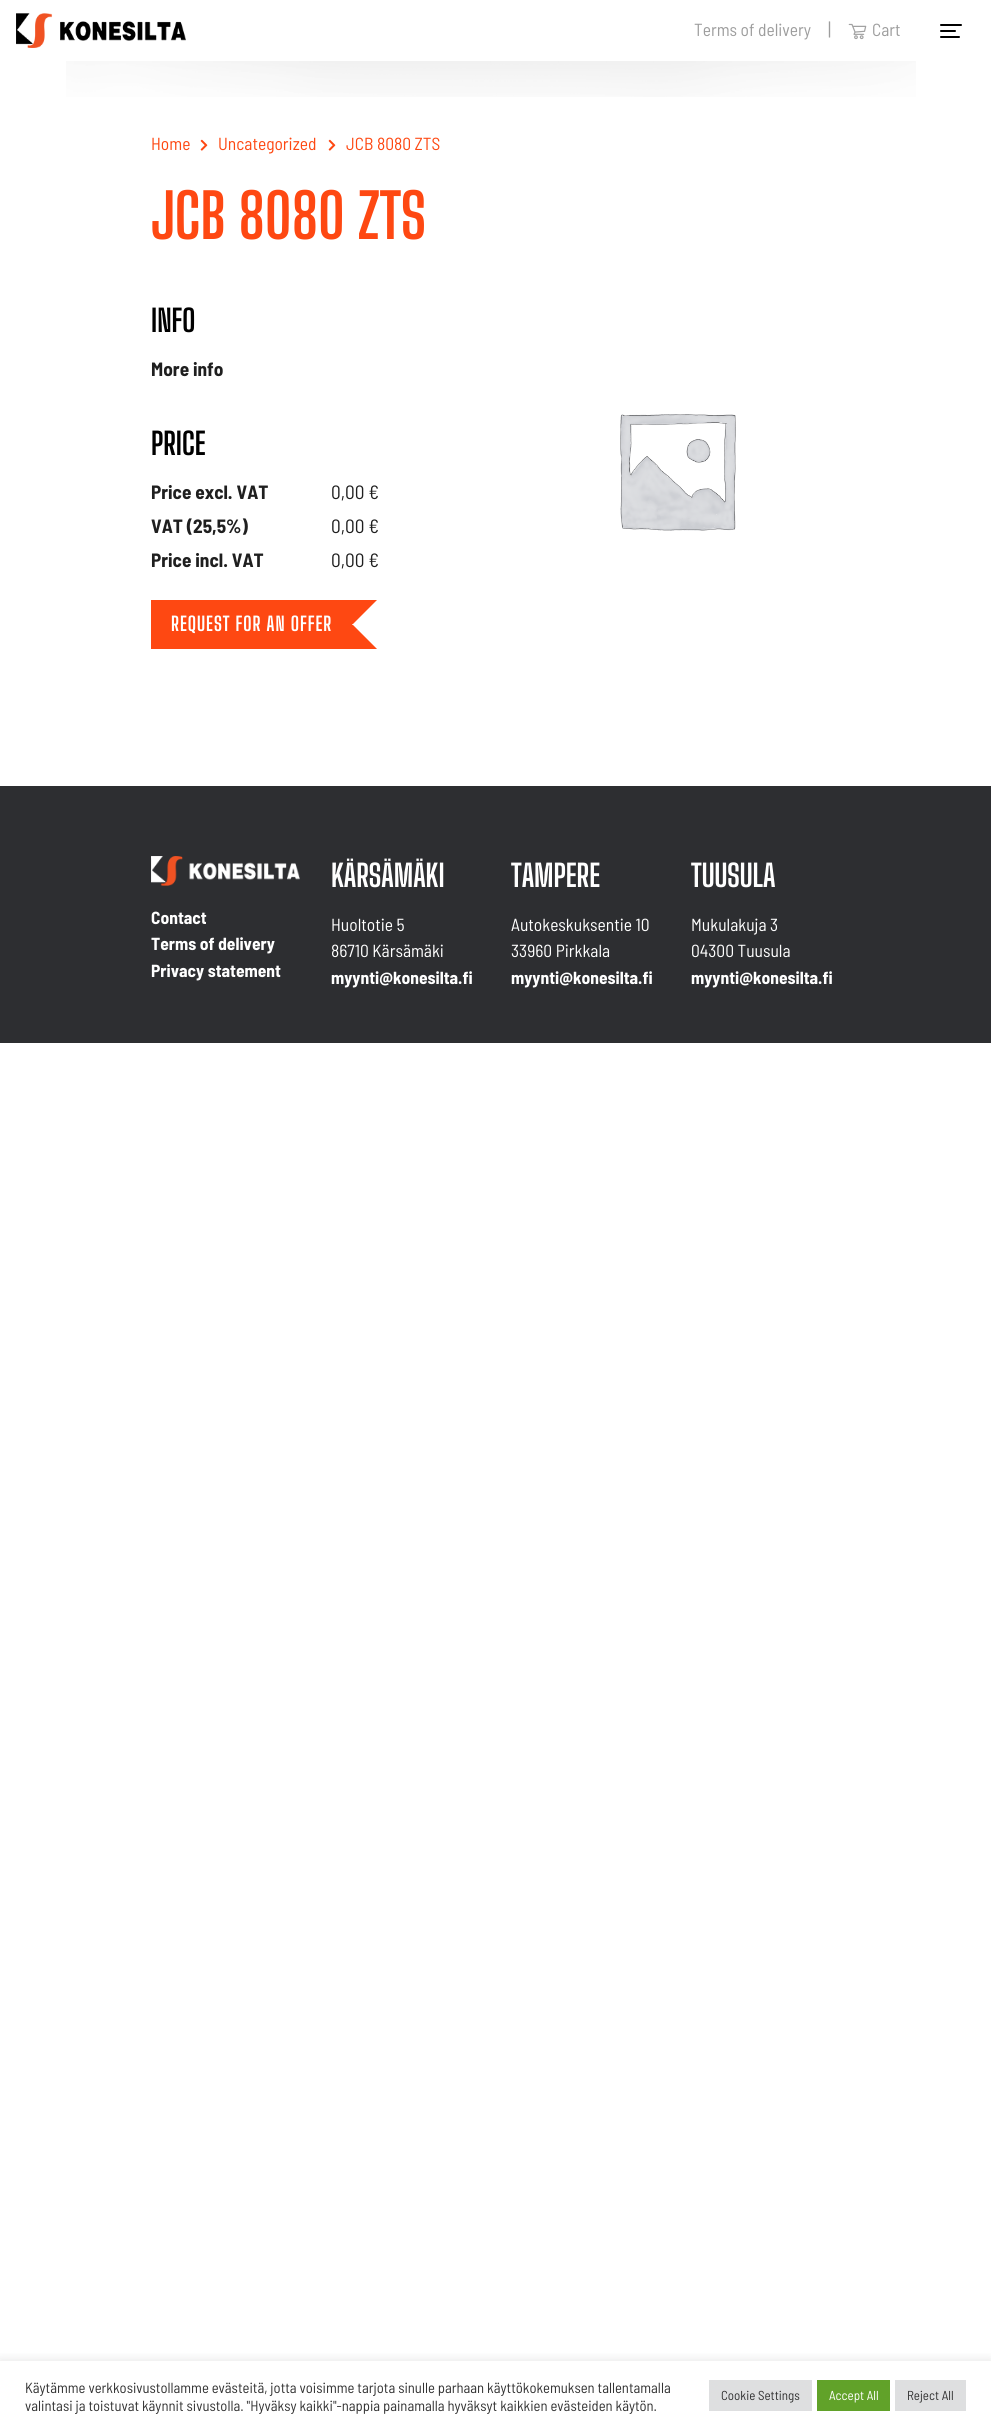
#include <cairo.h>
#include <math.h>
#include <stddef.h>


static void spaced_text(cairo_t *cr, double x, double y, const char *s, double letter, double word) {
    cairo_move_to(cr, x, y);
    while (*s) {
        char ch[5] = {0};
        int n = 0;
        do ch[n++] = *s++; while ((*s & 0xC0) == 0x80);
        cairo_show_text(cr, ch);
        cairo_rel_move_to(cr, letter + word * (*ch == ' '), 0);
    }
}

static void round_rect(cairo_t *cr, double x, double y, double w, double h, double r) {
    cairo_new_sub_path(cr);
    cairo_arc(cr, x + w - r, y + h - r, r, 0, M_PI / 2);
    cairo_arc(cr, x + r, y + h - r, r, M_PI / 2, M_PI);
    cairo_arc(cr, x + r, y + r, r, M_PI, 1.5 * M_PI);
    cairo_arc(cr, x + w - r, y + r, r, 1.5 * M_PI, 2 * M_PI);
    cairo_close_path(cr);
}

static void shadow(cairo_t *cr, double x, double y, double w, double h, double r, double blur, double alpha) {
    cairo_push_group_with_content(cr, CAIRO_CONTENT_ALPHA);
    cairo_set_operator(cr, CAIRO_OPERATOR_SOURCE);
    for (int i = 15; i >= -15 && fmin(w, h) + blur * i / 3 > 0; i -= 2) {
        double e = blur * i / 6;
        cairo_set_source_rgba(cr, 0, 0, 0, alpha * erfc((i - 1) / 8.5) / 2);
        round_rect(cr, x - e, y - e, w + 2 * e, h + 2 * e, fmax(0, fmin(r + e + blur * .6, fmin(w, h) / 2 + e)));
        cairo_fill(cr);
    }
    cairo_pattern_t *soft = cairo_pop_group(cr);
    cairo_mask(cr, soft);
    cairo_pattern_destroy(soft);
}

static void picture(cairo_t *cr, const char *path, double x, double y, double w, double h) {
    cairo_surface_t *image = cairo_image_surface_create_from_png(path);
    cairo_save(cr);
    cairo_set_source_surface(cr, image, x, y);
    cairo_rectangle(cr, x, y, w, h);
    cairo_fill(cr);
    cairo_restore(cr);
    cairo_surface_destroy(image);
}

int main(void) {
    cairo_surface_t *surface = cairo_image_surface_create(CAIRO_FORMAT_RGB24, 991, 2430);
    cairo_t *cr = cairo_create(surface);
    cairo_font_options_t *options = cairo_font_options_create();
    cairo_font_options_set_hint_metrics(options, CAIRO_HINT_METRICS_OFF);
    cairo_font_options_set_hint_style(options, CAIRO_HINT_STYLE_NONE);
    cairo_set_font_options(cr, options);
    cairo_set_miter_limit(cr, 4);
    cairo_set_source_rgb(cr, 1, 1, 1);
    cairo_paint(cr);
    picture(cr, "img1.png", 16, 13, 170, 35);
    cairo_select_font_face(cr, "Barlow Semi Condensed", CAIRO_FONT_SLANT_NORMAL, CAIRO_FONT_WEIGHT_NORMAL);
    cairo_set_font_size(cr, 17.5);
    cairo_set_source_rgb(cr, 0.616, 0.616, 0.616);
    cairo_move_to(cr, 694, 36);
    cairo_show_text(cr, "Terms of delivery");
    cairo_set_font_size(cr, 19.25);
    cairo_move_to(cr, 828, 36);
    cairo_show_text(cr, "|");
    picture(cr, "img2.png", 848, 23, 19, 17);
    cairo_set_font_size(cr, 17.5);
    cairo_move_to(cr, 872, 36);
    cairo_show_text(cr, "Cart");
    cairo_set_source_rgb(cr, 0, 0, 0);
    round_rect(cr, 940, 24, 22, 2, 1);
    cairo_fill(cr);
    round_rect(cr, 940, 30, 16, 2, 1);
    cairo_fill(cr);
    round_rect(cr, 940, 36, 20, 2, 1);
    cairo_fill(cr);
    picture(cr, "img3.png", 66, 61, 850, 36);
    cairo_set_source_rgb(cr, 0.996, 0.282, 0.071);
    cairo_move_to(cr, 151, 150);
    cairo_show_text(cr, "Home");
    picture(cr, "img4.png", 200, 139, 8, 12);
    cairo_move_to(cr, 218, 150);
    cairo_show_text(cr, "Uncategorized");
    picture(cr, "img4.png", 328, 139, 8, 12);
    cairo_move_to(cr, 346, 150);
    cairo_show_text(cr, "JCB 8080 ZTS");
    cairo_select_font_face(cr, "Big Shoulders Display", CAIRO_FONT_SLANT_NORMAL, CAIRO_FONT_WEIGHT_BOLD);
    cairo_set_font_size(cr, 61);
    cairo_move_to(cr, 151, 239);
    cairo_show_text(cr, "JCB 8080 ZTS");
    cairo_set_font_size(cr, 30.5);
    cairo_set_source_rgb(cr, 0, 0, 0);
    cairo_move_to(cr, 151, 332);
    cairo_show_text(cr, "INFO");
    cairo_select_font_face(cr, "Barlow Semi Condensed", CAIRO_FONT_SLANT_NORMAL, CAIRO_FONT_WEIGHT_BOLD);
    cairo_set_font_size(cr, 19.25);
    cairo_set_source_rgb(cr, 0.122, 0.122, 0.122);
    cairo_move_to(cr, 151, 376);
    cairo_show_text(cr, "More info");
    cairo_select_font_face(cr, "Big Shoulders Display", CAIRO_FONT_SLANT_NORMAL, CAIRO_FONT_WEIGHT_BOLD);
    cairo_set_font_size(cr, 30.5);
    cairo_set_source_rgb(cr, 0, 0, 0);
    cairo_move_to(cr, 151, 455);
    cairo_show_text(cr, "PRICE");
    cairo_select_font_face(cr, "Barlow Semi Condensed", CAIRO_FONT_SLANT_NORMAL, CAIRO_FONT_WEIGHT_BOLD);
    cairo_set_font_size(cr, 19.25);
    cairo_set_source_rgb(cr, 0.122, 0.122, 0.122);
    cairo_move_to(cr, 151, 499);
    cairo_show_text(cr, "Price excl. VAT");
    cairo_select_font_face(cr, "Barlow Semi Condensed", CAIRO_FONT_SLANT_NORMAL, CAIRO_FONT_WEIGHT_NORMAL);
    cairo_move_to(cr, 331, 499);
    cairo_show_text(cr, "0,00 €");
    cairo_select_font_face(cr, "Barlow Semi Condensed", CAIRO_FONT_SLANT_NORMAL, CAIRO_FONT_WEIGHT_BOLD);
    cairo_move_to(cr, 151, 533);
    cairo_show_text(cr, "VAT (25,5%)");
    cairo_select_font_face(cr, "Barlow Semi Condensed", CAIRO_FONT_SLANT_NORMAL, CAIRO_FONT_WEIGHT_NORMAL);
    cairo_move_to(cr, 331, 533);
    cairo_show_text(cr, "0,00 €");
    cairo_select_font_face(cr, "Barlow Semi Condensed", CAIRO_FONT_SLANT_NORMAL, CAIRO_FONT_WEIGHT_BOLD);
    cairo_move_to(cr, 151, 567);
    cairo_show_text(cr, "Price incl. VAT");
    cairo_select_font_face(cr, "Barlow Semi Condensed", CAIRO_FONT_SLANT_NORMAL, CAIRO_FONT_WEIGHT_NORMAL);
    cairo_move_to(cr, 331, 567);
    cairo_show_text(cr, "0,00 €");
    cairo_set_source_rgb(cr, 0.996, 0.282, 0.071);
    cairo_rectangle(cr, 151, 600, 226, 49);
    cairo_fill(cr);
    cairo_select_font_face(cr, "Big Shoulders Display", CAIRO_FONT_SLANT_NORMAL, CAIRO_FONT_WEIGHT_BOLD);
    cairo_set_source_rgb(cr, 1, 1, 1);
    spaced_text(cr, 171, 631, "REQUEST FOR AN OFFER", 1, 0);
    cairo_save(cr);
    cairo_rectangle(cr, 151, 600, 245, 49);
    cairo_clip(cr);
    cairo_new_path(cr);
    cairo_move_to(cr, 397, 580);
    cairo_line_to(cr, 397, 625);
    cairo_line_to(cr, 352, 625);
    cairo_close_path(cr);
    cairo_fill(cr);
    cairo_new_path(cr);
    cairo_move_to(cr, 397, 624);
    cairo_line_to(cr, 397, 669);
    cairo_line_to(cr, 352, 624);
    cairo_close_path(cr);
    cairo_fill(cr);
    cairo_restore(cr);
    picture(cr, "img5.png", 620, 414, 116, 117);
    cairo_set_source_rgb(cr, 0.176, 0.18, 0.192);
    cairo_rectangle(cr, 0, 786, 991, 257);
    cairo_fill(cr);
    picture(cr, "img6.png", 151, 856, 149, 30);
    cairo_select_font_face(cr, "Barlow Semi Condensed", CAIRO_FONT_SLANT_NORMAL, CAIRO_FONT_WEIGHT_BOLD);
    cairo_set_font_size(cr, 17.5);
    cairo_set_source_rgb(cr, 1, 1, 1);
    cairo_move_to(cr, 151, 924);
    cairo_show_text(cr, "Contact");
    cairo_move_to(cr, 151, 950);
    cairo_show_text(cr, "Terms of delivery");
    cairo_move_to(cr, 151, 977);
    cairo_show_text(cr, "Privacy statement");
    cairo_select_font_face(cr, "Big Shoulders Display", CAIRO_FONT_SLANT_NORMAL, CAIRO_FONT_WEIGHT_BOLD);
    cairo_set_font_size(cr, 30.5);
    cairo_move_to(cr, 331, 887);
    cairo_show_text(cr, "KÄRSÄMÄKI");
    cairo_select_font_face(cr, "Barlow Semi Condensed", CAIRO_FONT_SLANT_NORMAL, CAIRO_FONT_WEIGHT_NORMAL);
    cairo_set_font_size(cr, 17.5);
    cairo_move_to(cr, 331, 931);
    cairo_show_text(cr, "Huoltotie 5");
    cairo_move_to(cr, 331, 957);
    cairo_show_text(cr, "86710 Kärsämäki");
    cairo_select_font_face(cr, "Barlow Semi Condensed", CAIRO_FONT_SLANT_NORMAL, CAIRO_FONT_WEIGHT_BOLD);
    cairo_move_to(cr, 331, 984);
    cairo_show_text(cr, "myynti@konesilta.fi");
    cairo_select_font_face(cr, "Big Shoulders Display", CAIRO_FONT_SLANT_NORMAL, CAIRO_FONT_WEIGHT_BOLD);
    cairo_set_font_size(cr, 30.5);
    cairo_move_to(cr, 511, 887);
    cairo_show_text(cr, "TAMPERE");
    cairo_select_font_face(cr, "Barlow Semi Condensed", CAIRO_FONT_SLANT_NORMAL, CAIRO_FONT_WEIGHT_NORMAL);
    cairo_set_font_size(cr, 17.5);
    cairo_move_to(cr, 511, 931);
    cairo_show_text(cr, "Autokeskuksentie 10");
    cairo_move_to(cr, 511, 957);
    cairo_show_text(cr, "33960 Pirkkala");
    cairo_select_font_face(cr, "Barlow Semi Condensed", CAIRO_FONT_SLANT_NORMAL, CAIRO_FONT_WEIGHT_BOLD);
    cairo_move_to(cr, 511, 984);
    cairo_show_text(cr, "myynti@konesilta.fi");
    cairo_select_font_face(cr, "Big Shoulders Display", CAIRO_FONT_SLANT_NORMAL, CAIRO_FONT_WEIGHT_BOLD);
    cairo_set_font_size(cr, 30.5);
    cairo_move_to(cr, 691, 887);
    cairo_show_text(cr, "TUUSULA");
    cairo_select_font_face(cr, "Barlow Semi Condensed", CAIRO_FONT_SLANT_NORMAL, CAIRO_FONT_WEIGHT_NORMAL);
    cairo_set_font_size(cr, 17.5);
    cairo_move_to(cr, 691, 931);
    cairo_show_text(cr, "Mukulakuja 3");
    cairo_move_to(cr, 691, 957);
    cairo_show_text(cr, "04300 Tuusula");
    cairo_select_font_face(cr, "Barlow Semi Condensed", CAIRO_FONT_SLANT_NORMAL, CAIRO_FONT_WEIGHT_BOLD);
    cairo_move_to(cr, 691, 984);
    cairo_show_text(cr, "myynti@konesilta.fi");
    cairo_save(cr);
    cairo_rectangle(cr, 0, 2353, 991, 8);
    cairo_clip(cr);
    cairo_set_source_rgb(cr, 0.675, 0.671, 0.671);
    shadow(cr, 0, 2360, 991, 69, 0, 5, 0.3);
    cairo_restore(cr);
    cairo_select_font_face(cr, "Barlow Semi Condensed", CAIRO_FONT_SLANT_NORMAL, CAIRO_FONT_WEIGHT_NORMAL);
    cairo_set_font_size(cr, 14.65);
    cairo_set_source_rgb(cr, 0.2, 0.2, 0.2);
    cairo_move_to(cr, 25, 2393);
    cairo_show_text(cr, "Käytämme verkkosivustollamme evästeitä, jotta voisimme tarjota sinulle parhaan käyttökokemuksen tallentamalla");
    cairo_move_to(cr, 25, 2411);
    cairo_show_text(cr, "valintasi ja toistuvat käynnit sivustolla. \"Hyväksy kaikki\"-nappia painamalla hyväksyt kaikkien evästeiden käytön.");
    cairo_set_source_rgb(cr, 0.871, 0.875, 0.878);
    cairo_rectangle(cr, 709, 2380, 103, 31);
    cairo_fill(cr);
    cairo_set_font_size(cr, 13);
    cairo_set_source_rgb(cr, 0.2, 0.2, 0.2);
    cairo_move_to(cr, 721, 2400);
    cairo_show_text(cr, "Cookie Settings");
    cairo_set_source_rgb(cr, 0.38, 0.635, 0.161);
    cairo_rectangle(cr, 817, 2380, 73, 31);
    cairo_fill(cr);
    cairo_set_source_rgb(cr, 1, 1, 1);
    cairo_move_to(cr, 829, 2400);
    cairo_show_text(cr, "Accept All");
    cairo_set_source_rgb(cr, 0.871, 0.875, 0.878);
    cairo_rectangle(cr, 895, 2380, 71, 31);
    cairo_fill(cr);
    cairo_set_source_rgb(cr, 0.2, 0.2, 0.2);
    cairo_move_to(cr, 907, 2400);
    cairo_show_text(cr, "Reject All");
    cairo_surface_write_to_png(surface, "page.png");
    cairo_font_options_destroy(options);
    cairo_destroy(cr);
    cairo_surface_destroy(surface);
    return 0;
}
